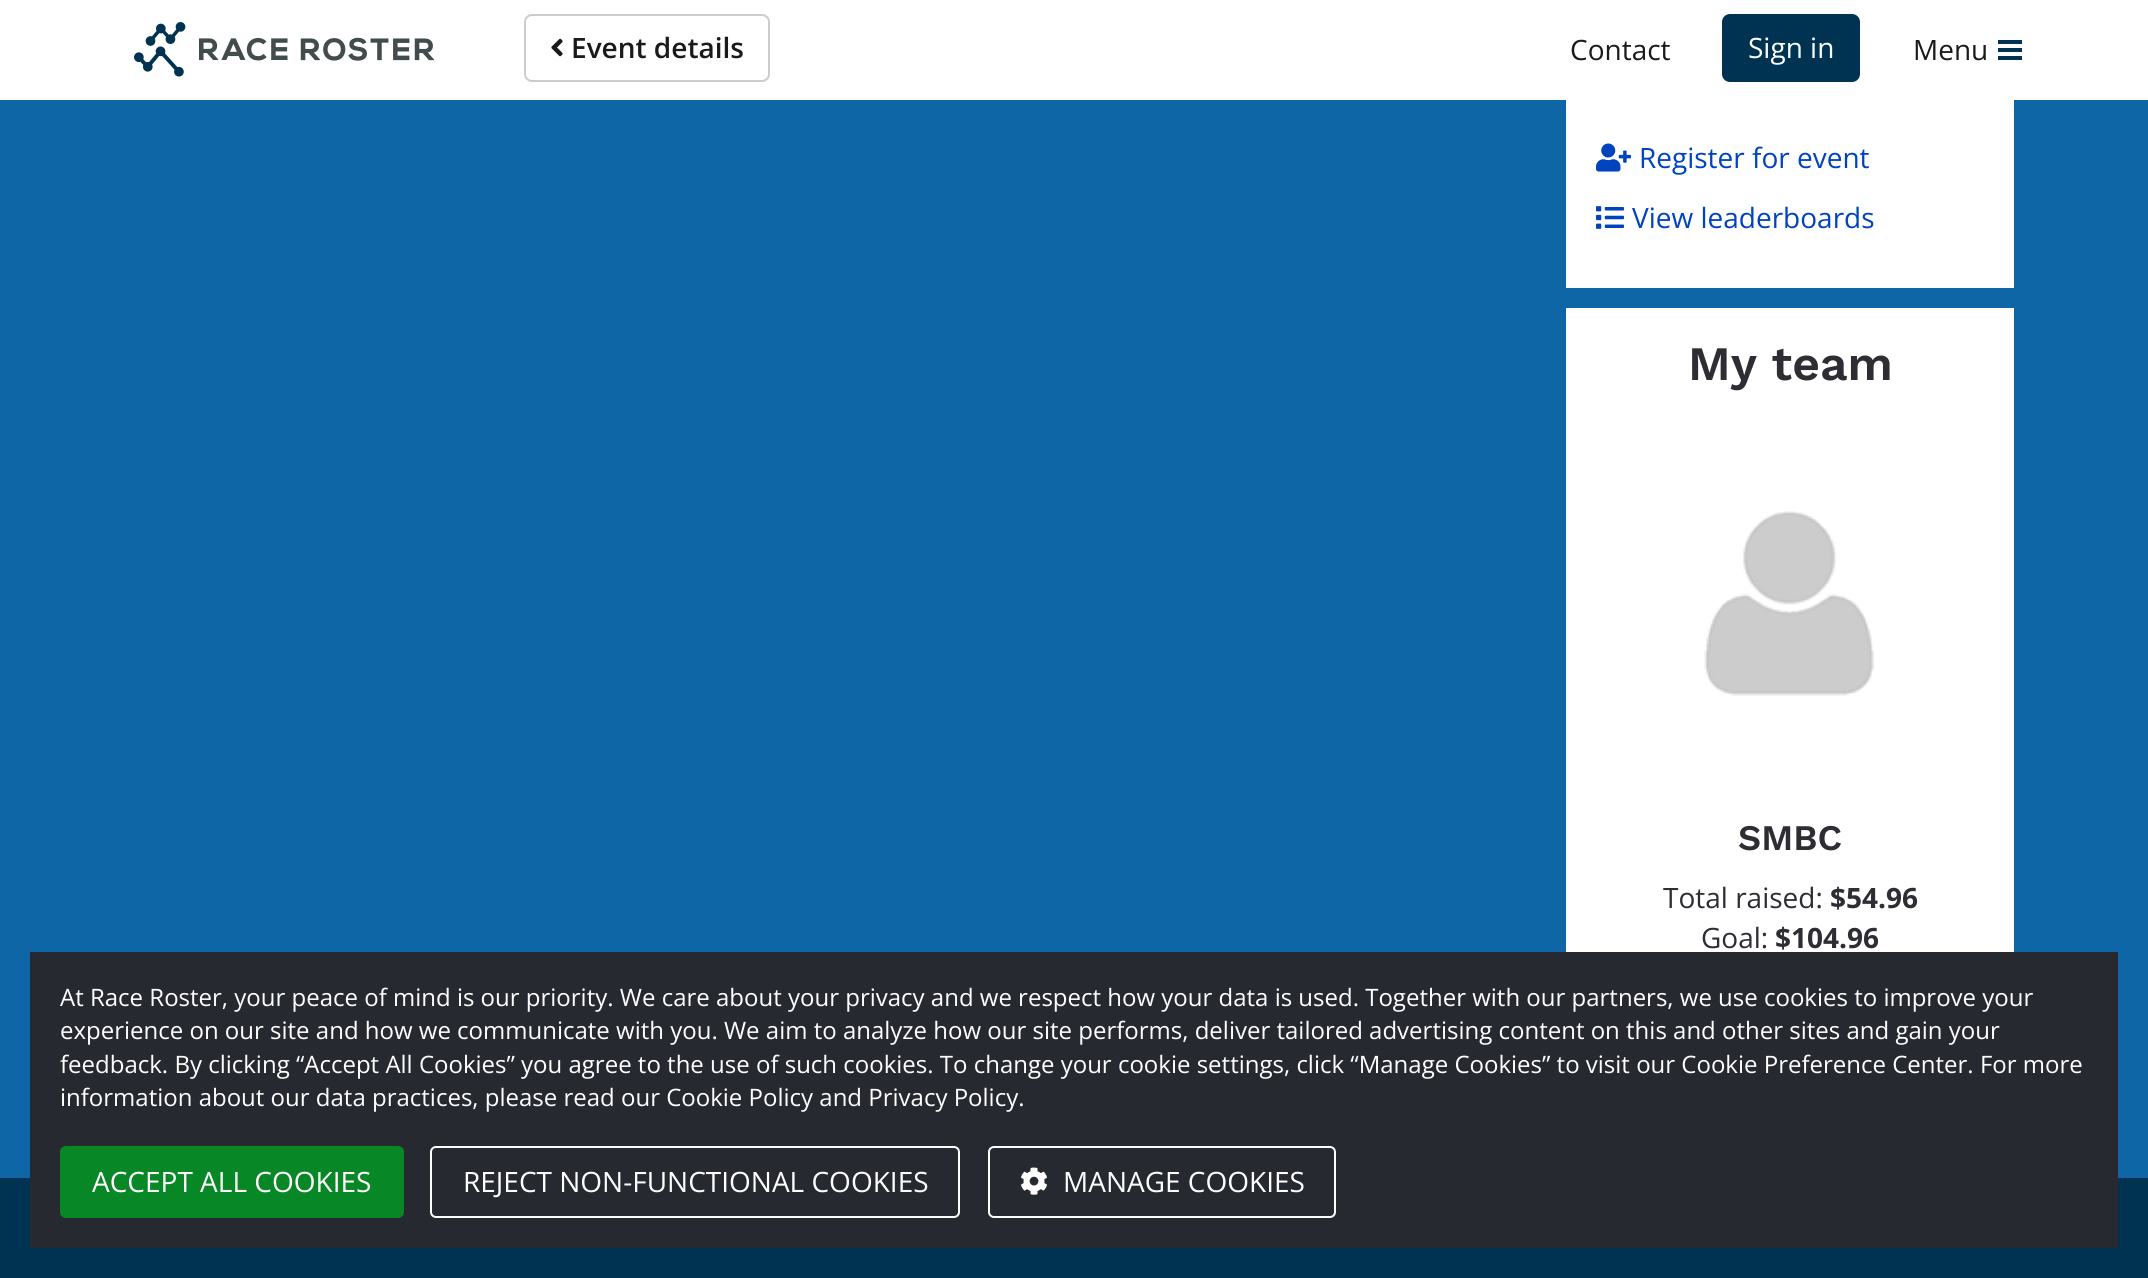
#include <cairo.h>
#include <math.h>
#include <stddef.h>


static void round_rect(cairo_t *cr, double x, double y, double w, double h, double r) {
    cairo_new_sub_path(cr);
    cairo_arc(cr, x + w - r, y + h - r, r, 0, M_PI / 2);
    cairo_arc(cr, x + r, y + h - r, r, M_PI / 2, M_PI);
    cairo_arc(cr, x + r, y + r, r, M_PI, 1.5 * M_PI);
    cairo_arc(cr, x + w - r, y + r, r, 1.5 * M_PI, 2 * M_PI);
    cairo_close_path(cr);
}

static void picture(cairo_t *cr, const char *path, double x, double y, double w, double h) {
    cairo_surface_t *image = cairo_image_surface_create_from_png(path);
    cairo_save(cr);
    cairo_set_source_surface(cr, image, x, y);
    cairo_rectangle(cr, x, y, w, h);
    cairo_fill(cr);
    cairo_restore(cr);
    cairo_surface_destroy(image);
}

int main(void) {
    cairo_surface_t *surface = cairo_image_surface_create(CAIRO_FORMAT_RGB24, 2148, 1278);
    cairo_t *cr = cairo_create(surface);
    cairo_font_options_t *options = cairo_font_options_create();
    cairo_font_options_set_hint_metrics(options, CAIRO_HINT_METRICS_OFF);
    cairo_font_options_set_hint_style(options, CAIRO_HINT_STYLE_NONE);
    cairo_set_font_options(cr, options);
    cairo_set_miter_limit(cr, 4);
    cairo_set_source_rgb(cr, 0.055, 0.4, 0.651);
    cairo_paint(cr);
    cairo_set_source_rgb(cr, 1, 1, 1);
    cairo_rectangle(cr, 0, 0, 2148, 100);
    cairo_fill(cr);
    picture(cr, "img1.png", 134, 22, 300, 55);
    round_rect(cr, 525, 15, 244, 66, 7);
    cairo_set_source_rgb(cr, 0.8, 0.8, 0.8);
    cairo_stroke(cr);
    picture(cr, "img2.png", 551, 38, 12, 19);
    cairo_select_font_face(cr, "Open Sans SemiBold", CAIRO_FONT_SLANT_NORMAL, CAIRO_FONT_WEIGHT_NORMAL);
    cairo_set_font_size(cr, 28);
    cairo_set_source_rgb(cr, 0.102, 0.102, 0.102);
    cairo_move_to(cr, 571, 58);
    cairo_show_text(cr, "Event details");
    cairo_select_font_face(cr, "Open Sans", CAIRO_FONT_SLANT_NORMAL, CAIRO_FONT_WEIGHT_NORMAL);
    cairo_move_to(cr, 1570, 60);
    cairo_show_text(cr, "Contact");
    cairo_set_source_rgb(cr, 0, 0.2, 0.322);
    round_rect(cr, 1722, 14, 138, 68, 8);
    cairo_fill(cr);
    cairo_set_source_rgb(cr, 1, 1, 1);
    cairo_move_to(cr, 1748, 58);
    cairo_show_text(cr, "Sign in");
    cairo_set_source_rgb(cr, 0.102, 0.102, 0.102);
    cairo_move_to(cr, 1913, 60);
    cairo_show_text(cr, "Menu");
    cairo_set_source_rgb(cr, 0, 0.2, 0.322);
    cairo_rectangle(cr, 1998, 40, 24, 4);
    cairo_fill(cr);
    cairo_rectangle(cr, 1998, 48, 24, 4);
    cairo_fill(cr);
    cairo_rectangle(cr, 1998, 56, 24, 4);
    cairo_fill(cr);
    cairo_set_source_rgb(cr, 1, 1, 1);
    cairo_rectangle(cr, 1566, 100, 448, 188);
    cairo_fill(cr);
    picture(cr, "img3.png", 1596, 143, 35, 29);
    cairo_set_source_rgb(cr, 0, 0.263, 0.749);
    cairo_move_to(cr, 1639, 168);
    cairo_show_text(cr, "Register for event");
    picture(cr, "img4.png", 1596, 206, 28, 23);
    cairo_move_to(cr, 1632, 228);
    cairo_show_text(cr, "View leaderboards");
    cairo_set_source_rgb(cr, 1, 1, 1);
    cairo_rectangle(cr, 1566, 308, 448, 644);
    cairo_fill(cr);
    cairo_select_font_face(cr, "Work Sans SemiBold", CAIRO_FONT_SLANT_NORMAL, CAIRO_FONT_WEIGHT_NORMAL);
    cairo_set_font_size(cr, 48);
    cairo_set_source_rgb(cr, 0.176, 0.176, 0.2);
    cairo_move_to(cr, 1688, 380);
    cairo_show_text(cr, "My team");
    picture(cr, "img5.png", 1704, 511, 170, 185);
    cairo_set_font_size(cr, 36);
    cairo_move_to(cr, 1738, 850);
    cairo_show_text(cr, "SMBC");
    cairo_select_font_face(cr, "Open Sans", CAIRO_FONT_SLANT_NORMAL, CAIRO_FONT_WEIGHT_NORMAL);
    cairo_set_font_size(cr, 28);
    cairo_move_to(cr, 1663, 908);
    cairo_show_text(cr, "Total raised:");
    cairo_select_font_face(cr, "Open Sans", CAIRO_FONT_SLANT_NORMAL, CAIRO_FONT_WEIGHT_BOLD);
    cairo_move_to(cr, 1830, 908);
    cairo_show_text(cr, "$54.96");
    cairo_select_font_face(cr, "Open Sans", CAIRO_FONT_SLANT_NORMAL, CAIRO_FONT_WEIGHT_NORMAL);
    cairo_move_to(cr, 1701, 948);
    cairo_show_text(cr, "Goal:");
    cairo_select_font_face(cr, "Open Sans", CAIRO_FONT_SLANT_NORMAL, CAIRO_FONT_WEIGHT_BOLD);
    cairo_move_to(cr, 1775, 948);
    cairo_show_text(cr, "$104.96");
    cairo_set_source_rgb(cr, 0, 0.2, 0.322);
    cairo_rectangle(cr, 0, 1178, 2148, 100);
    cairo_fill(cr);
    cairo_set_source_rgb(cr, 0.153, 0.161, 0.188);
    cairo_rectangle(cr, 30, 952, 2088, 296);
    cairo_fill(cr);
    cairo_select_font_face(cr, "Open Sans", CAIRO_FONT_SLANT_NORMAL, CAIRO_FONT_WEIGHT_NORMAL);
    cairo_set_font_size(cr, 24);
    cairo_set_source_rgb(cr, 1, 1, 1);
    cairo_move_to(cr, 60, 1006);
    cairo_show_text(cr, "At Race Roster, your peace of mind is our priority. We care about your privacy and we respect how your data is used. Together with our partners, we use cookies to improve your");
    cairo_move_to(cr, 60, 1039);
    cairo_show_text(cr, "experience on our site and how we communicate with you. We aim to analyze how our site performs, deliver tailored advertising content on this and other sites and gain your");
    cairo_move_to(cr, 60, 1073);
    cairo_show_text(cr, "feedback. By clicking “Accept All Cookies” you agree to the use of such cookies. To change your cookie settings, click “Manage Cookies” to visit our Cookie Preference Center. For more");
    cairo_move_to(cr, 60, 1106);
    cairo_show_text(cr, "information about our data practices, please read our Cookie Policy and Privacy Policy.");
    cairo_set_source_rgb(cr, 0.035, 0.529, 0.149);
    round_rect(cr, 60, 1146, 344, 72, 6);
    cairo_fill(cr);
    cairo_set_font_size(cr, 28);
    cairo_set_source_rgb(cr, 1, 1, 1);
    cairo_move_to(cr, 92, 1192);
    cairo_show_text(cr, "ACCEPT ALL COOKIES");
    round_rect(cr, 431, 1147, 528, 70, 5);
    cairo_stroke(cr);
    cairo_move_to(cr, 463, 1192);
    cairo_show_text(cr, "REJECT NON-FUNCTIONAL COOKIES");
    round_rect(cr, 989, 1147, 346, 70, 5);
    cairo_stroke(cr);
    picture(cr, "img6.png", 1021, 1167, 26, 28);
    cairo_move_to(cr, 1063, 1192);
    cairo_show_text(cr, "MANAGE COOKIES");
    cairo_surface_write_to_png(surface, "page.png");
    cairo_font_options_destroy(options);
    cairo_destroy(cr);
    cairo_surface_destroy(surface);
    return 0;
}
